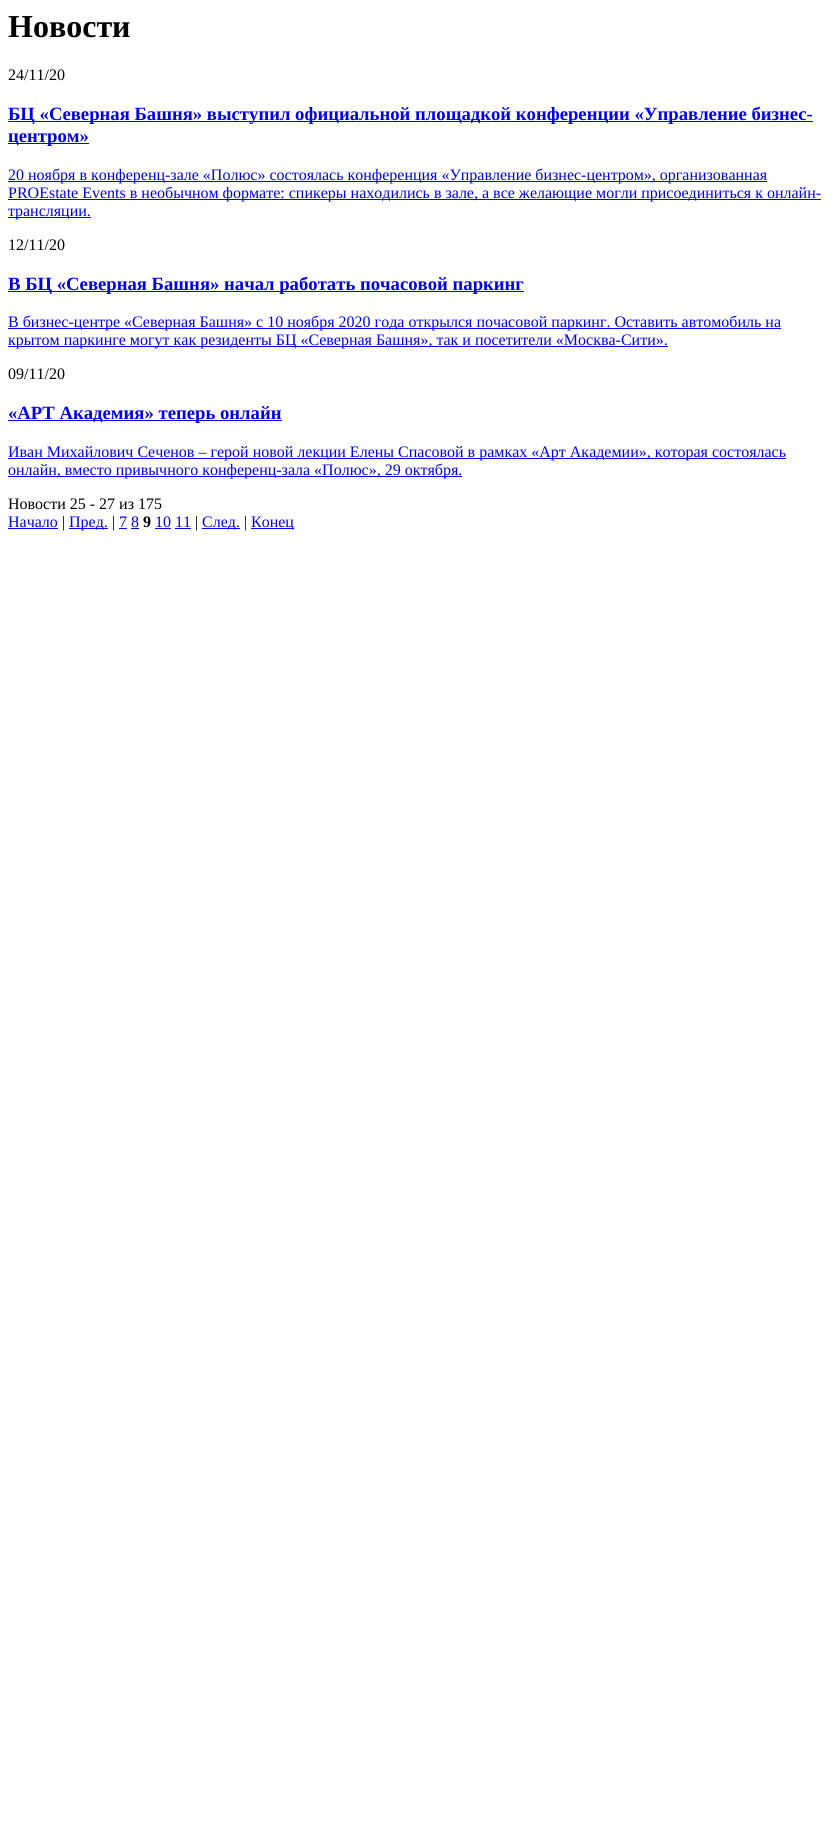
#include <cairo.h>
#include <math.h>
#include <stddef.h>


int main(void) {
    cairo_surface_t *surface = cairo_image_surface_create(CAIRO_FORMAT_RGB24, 836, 1843);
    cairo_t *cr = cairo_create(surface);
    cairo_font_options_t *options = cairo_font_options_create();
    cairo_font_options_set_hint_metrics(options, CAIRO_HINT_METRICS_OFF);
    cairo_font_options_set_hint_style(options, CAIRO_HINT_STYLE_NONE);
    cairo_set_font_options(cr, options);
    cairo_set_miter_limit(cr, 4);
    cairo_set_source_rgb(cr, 1, 1, 1);
    cairo_paint(cr);
    cairo_select_font_face(cr, "Liberation Serif", CAIRO_FONT_SLANT_NORMAL, CAIRO_FONT_WEIGHT_BOLD);
    cairo_set_font_size(cr, 32);
    cairo_set_source_rgb(cr, 0, 0, 0);
    cairo_move_to(cr, 8, 37);
    cairo_show_text(cr, "Новости");
    cairo_select_font_face(cr, "Liberation Serif", CAIRO_FONT_SLANT_NORMAL, CAIRO_FONT_WEIGHT_NORMAL);
    cairo_set_font_size(cr, 16);
    cairo_move_to(cr, 8, 80);
    cairo_show_text(cr, "24/11/20");
    cairo_set_source_rgb(cr, 0, 0, 0.933);
    cairo_rectangle(cr, 8, 121, 805, 1);
    cairo_fill(cr);
    cairo_select_font_face(cr, "Liberation Serif", CAIRO_FONT_SLANT_NORMAL, CAIRO_FONT_WEIGHT_BOLD);
    cairo_set_font_size(cr, 18.7);
    cairo_move_to(cr, 8, 120);
    cairo_show_text(cr, "БЦ «Северная Башня» выступил официальной площадкой конференции «Управление бизнес-");
    cairo_rectangle(cr, 8, 143, 81, 1);
    cairo_fill(cr);
    cairo_move_to(cr, 8, 142);
    cairo_show_text(cr, "центром»");
    cairo_rectangle(cr, 8, 181, 759, 1);
    cairo_fill(cr);
    cairo_select_font_face(cr, "Liberation Serif", CAIRO_FONT_SLANT_NORMAL, CAIRO_FONT_WEIGHT_NORMAL);
    cairo_set_font_size(cr, 16);
    cairo_move_to(cr, 8, 180);
    cairo_show_text(cr, "20 ноября в конференц-зале «Полюс» состоялась конференция «Управление бизнес-центром», организованная");
    cairo_rectangle(cr, 8, 199, 813, 1);
    cairo_fill(cr);
    cairo_move_to(cr, 8, 198);
    cairo_show_text(cr, "PROEstate Events в необычном формате: спикеры находились в зале, а все желающие могли присоединиться к онлайн-");
    cairo_rectangle(cr, 8, 217, 83, 1);
    cairo_fill(cr);
    cairo_move_to(cr, 8, 216);
    cairo_show_text(cr, "трансляции.");
    cairo_set_source_rgb(cr, 0, 0, 0);
    cairo_move_to(cr, 8, 250);
    cairo_show_text(cr, "12/11/20");
    cairo_set_source_rgb(cr, 0, 0, 0.933);
    cairo_rectangle(cr, 8, 291, 516, 1);
    cairo_fill(cr);
    cairo_select_font_face(cr, "Liberation Serif", CAIRO_FONT_SLANT_NORMAL, CAIRO_FONT_WEIGHT_BOLD);
    cairo_set_font_size(cr, 18.7);
    cairo_move_to(cr, 8, 290);
    cairo_show_text(cr, "В БЦ «Северная Башня» начал работать почасовой паркинг");
    cairo_rectangle(cr, 8, 328, 773, 1);
    cairo_fill(cr);
    cairo_select_font_face(cr, "Liberation Serif", CAIRO_FONT_SLANT_NORMAL, CAIRO_FONT_WEIGHT_NORMAL);
    cairo_set_font_size(cr, 16);
    cairo_move_to(cr, 8, 327);
    cairo_show_text(cr, "В бизнес-центре «Северная Башня» с 10 ноября 2020 года открылся почасовой паркинг. Оставить автомобиль на");
    cairo_rectangle(cr, 8, 346, 660, 1);
    cairo_fill(cr);
    cairo_move_to(cr, 8, 345);
    cairo_show_text(cr, "крытом паркинге могут как резиденты БЦ «Северная Башня», так и посетители «Москва-Сити».");
    cairo_set_source_rgb(cr, 0, 0, 0);
    cairo_move_to(cr, 8, 379);
    cairo_show_text(cr, "09/11/20");
    cairo_set_source_rgb(cr, 0, 0, 0.933);
    cairo_rectangle(cr, 8, 420, 274, 1);
    cairo_fill(cr);
    cairo_select_font_face(cr, "Liberation Serif", CAIRO_FONT_SLANT_NORMAL, CAIRO_FONT_WEIGHT_BOLD);
    cairo_set_font_size(cr, 18.7);
    cairo_move_to(cr, 8, 419);
    cairo_show_text(cr, "«АРТ Академия» теперь онлайн");
    cairo_rectangle(cr, 8, 458, 778, 1);
    cairo_fill(cr);
    cairo_select_font_face(cr, "Liberation Serif", CAIRO_FONT_SLANT_NORMAL, CAIRO_FONT_WEIGHT_NORMAL);
    cairo_set_font_size(cr, 16);
    cairo_move_to(cr, 8, 457);
    cairo_show_text(cr, "Иван Михайлович Сеченов – герой новой лекции Елены Спасовой в рамках «Арт Академии», которая состоялась");
    cairo_rectangle(cr, 8, 476, 454, 1);
    cairo_fill(cr);
    cairo_move_to(cr, 8, 475);
    cairo_show_text(cr, "онлайн, вместо привычного конференц-зала «Полюс», 29 октября.");
    cairo_set_source_rgb(cr, 0, 0, 0);
    cairo_move_to(cr, 8, 509);
    cairo_show_text(cr, "Новости 25 - 27 из 175");
    cairo_set_source_rgb(cr, 0, 0, 0.933);
    cairo_move_to(cr, 8, 527);
    cairo_show_text(cr, "Начало");
    cairo_rectangle(cr, 8, 528, 50, 1);
    cairo_fill(cr);
    cairo_set_source_rgb(cr, 0, 0, 0);
    cairo_move_to(cr, 62, 527);
    cairo_show_text(cr, "|");
    cairo_set_source_rgb(cr, 0, 0, 0.933);
    cairo_rectangle(cr, 69, 528, 39, 1);
    cairo_fill(cr);
    cairo_move_to(cr, 69, 527);
    cairo_show_text(cr, "Пред.");
    cairo_set_source_rgb(cr, 0, 0, 0);
    cairo_move_to(cr, 112, 527);
    cairo_show_text(cr, "|");
    cairo_set_source_rgb(cr, 0, 0, 0.933);
    cairo_move_to(cr, 119, 527);
    cairo_show_text(cr, "7 8");
    cairo_rectangle(cr, 119, 528, 8, 1);
    cairo_fill(cr);
    cairo_rectangle(cr, 131, 528, 8, 1);
    cairo_fill(cr);
    cairo_select_font_face(cr, "Liberation Serif", CAIRO_FONT_SLANT_NORMAL, CAIRO_FONT_WEIGHT_BOLD);
    cairo_set_source_rgb(cr, 0, 0, 0);
    cairo_move_to(cr, 143, 527);
    cairo_show_text(cr, "9");
    cairo_select_font_face(cr, "Liberation Serif", CAIRO_FONT_SLANT_NORMAL, CAIRO_FONT_WEIGHT_NORMAL);
    cairo_set_source_rgb(cr, 0, 0, 0.933);
    cairo_move_to(cr, 155, 527);
    cairo_show_text(cr, "10 11");
    cairo_rectangle(cr, 155, 528, 16, 1);
    cairo_fill(cr);
    cairo_rectangle(cr, 175, 528, 16, 1);
    cairo_fill(cr);
    cairo_set_source_rgb(cr, 0, 0, 0);
    cairo_move_to(cr, 195, 527);
    cairo_show_text(cr, "|");
    cairo_set_source_rgb(cr, 0, 0, 0.933);
    cairo_rectangle(cr, 202, 528, 38, 1);
    cairo_fill(cr);
    cairo_move_to(cr, 202, 527);
    cairo_show_text(cr, "След.");
    cairo_set_source_rgb(cr, 0, 0, 0);
    cairo_move_to(cr, 244, 527);
    cairo_show_text(cr, "|");
    cairo_set_source_rgb(cr, 0, 0, 0.933);
    cairo_rectangle(cr, 251, 528, 43, 1);
    cairo_fill(cr);
    cairo_move_to(cr, 251, 527);
    cairo_show_text(cr, "Конец");
    cairo_surface_write_to_png(surface, "page.png");
    cairo_font_options_destroy(options);
    cairo_destroy(cr);
    cairo_surface_destroy(surface);
    return 0;
}
